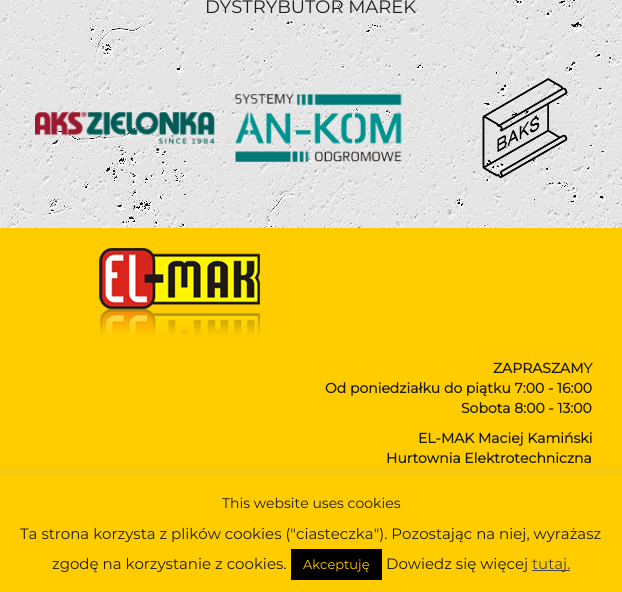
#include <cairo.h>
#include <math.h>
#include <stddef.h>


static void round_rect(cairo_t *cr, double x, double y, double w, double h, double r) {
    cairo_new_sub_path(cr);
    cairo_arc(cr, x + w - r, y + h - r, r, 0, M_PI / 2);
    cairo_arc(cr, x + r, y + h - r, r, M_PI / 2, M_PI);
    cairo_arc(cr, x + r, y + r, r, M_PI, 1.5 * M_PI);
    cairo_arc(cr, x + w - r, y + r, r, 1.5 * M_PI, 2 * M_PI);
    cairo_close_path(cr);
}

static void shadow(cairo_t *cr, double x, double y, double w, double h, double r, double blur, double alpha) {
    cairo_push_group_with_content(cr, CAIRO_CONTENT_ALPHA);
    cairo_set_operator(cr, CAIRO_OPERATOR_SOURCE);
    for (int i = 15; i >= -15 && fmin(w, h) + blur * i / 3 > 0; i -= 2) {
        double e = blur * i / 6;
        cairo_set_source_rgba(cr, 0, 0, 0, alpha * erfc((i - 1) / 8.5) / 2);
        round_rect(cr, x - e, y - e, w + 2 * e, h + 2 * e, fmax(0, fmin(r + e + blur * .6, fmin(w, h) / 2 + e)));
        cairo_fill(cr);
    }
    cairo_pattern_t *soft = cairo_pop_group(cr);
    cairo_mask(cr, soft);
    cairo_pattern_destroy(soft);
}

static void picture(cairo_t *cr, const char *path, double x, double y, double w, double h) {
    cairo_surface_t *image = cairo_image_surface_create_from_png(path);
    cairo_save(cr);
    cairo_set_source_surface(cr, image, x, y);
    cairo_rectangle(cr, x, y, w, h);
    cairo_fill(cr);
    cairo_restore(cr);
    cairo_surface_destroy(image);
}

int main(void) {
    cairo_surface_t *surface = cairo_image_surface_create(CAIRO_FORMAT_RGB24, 622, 592);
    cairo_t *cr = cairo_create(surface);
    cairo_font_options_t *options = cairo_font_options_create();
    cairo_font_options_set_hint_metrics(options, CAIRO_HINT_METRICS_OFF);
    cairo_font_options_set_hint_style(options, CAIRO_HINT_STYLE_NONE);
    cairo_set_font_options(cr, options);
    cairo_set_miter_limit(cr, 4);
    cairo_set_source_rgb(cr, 1, 1, 1);
    cairo_paint(cr);
    picture(cr, "img1.png", 0, 0, 622, 228);
    cairo_select_font_face(cr, "Montserrat Thin", CAIRO_FONT_SLANT_NORMAL, CAIRO_FONT_WEIGHT_NORMAL);
    cairo_set_font_size(cr, 18);
    cairo_set_source_rgb(cr, 0.11, 0.11, 0.11);
    cairo_move_to(cr, 205, 13);
    cairo_show_text(cr, "DYSTRYBUTOR MAREK");
    picture(cr, "img2.png", 35, 112, 180, 32);
    picture(cr, "img3.png", 235, 93, 167, 69);
    picture(cr, "img4.png", 482, 78, 86, 100);
    cairo_set_source_rgb(cr, 1, 0.8, 0);
    cairo_rectangle(cr, 0, 228, 622, 246);
    cairo_fill(cr);
    picture(cr, "img5.png", 99, 248, 161, 87);
    cairo_select_font_face(cr, "Montserrat", CAIRO_FONT_SLANT_NORMAL, CAIRO_FONT_WEIGHT_BOLD);
    cairo_set_font_size(cr, 14);
    cairo_set_source_rgb(cr, 0.11, 0.11, 0.11);
    cairo_move_to(cr, 493, 373);
    cairo_show_text(cr, "ZAPRASZAMY");
    cairo_move_to(cr, 325, 393);
    cairo_show_text(cr, "Od poniedziałku do piątku 7:00 - 16:00");
    cairo_move_to(cr, 461, 413);
    cairo_show_text(cr, "Sobota 8:00 - 13:00");
    cairo_move_to(cr, 418, 443);
    cairo_show_text(cr, "EL-MAK Maciej Kamiński");
    cairo_move_to(cr, 386, 463);
    cairo_show_text(cr, "Hurtownia Elektrotechniczna");
    cairo_set_source_rgb(cr, 0.675, 0.671, 0.671);
    shadow(cr, 0, 473, 622, 118, 0, 5, 0.3);
    cairo_set_source_rgb(cr, 1, 0.8, 0);
    cairo_rectangle(cr, 0, 474, 622, 118);
    cairo_fill(cr);
    cairo_select_font_face(cr, "Montserrat Thin", CAIRO_FONT_SLANT_NORMAL, CAIRO_FONT_WEIGHT_NORMAL);
    cairo_set_source_rgb(cr, 0.11, 0.11, 0.11);
    cairo_move_to(cr, 222, 508);
    cairo_show_text(cr, "This website uses cookies");
    cairo_set_font_size(cr, 15);
    cairo_move_to(cr, 20, 539);
    cairo_show_text(cr, "Ta strona korzysta z plików cookies (\"ciasteczka\"). Pozostając na niej, wyrażasz");
    cairo_move_to(cr, 52, 569);
    cairo_show_text(cr, "zgodę na korzystanie z cookies.");
    cairo_set_source_rgb(cr, 0, 0, 0);
    cairo_rectangle(cr, 291, 549, 91, 31);
    cairo_fill(cr);
    cairo_set_font_size(cr, 13);
    cairo_set_source_rgb(cr, 1, 0.8, 0);
    cairo_move_to(cr, 303, 569);
    cairo_show_text(cr, "Akceptuję");
    cairo_set_font_size(cr, 15);
    cairo_set_source_rgb(cr, 0.11, 0.11, 0.11);
    cairo_move_to(cr, 386, 569);
    cairo_show_text(cr, "Dowiedz się więcej");
    cairo_set_source_rgb(cr, 0.267, 0.267, 0.267);
    cairo_rectangle(cr, 532, 570, 38, 1);
    cairo_fill(cr);
    cairo_move_to(cr, 532, 569);
    cairo_show_text(cr, "tutaj.");
    cairo_surface_write_to_png(surface, "page.png");
    cairo_font_options_destroy(options);
    cairo_destroy(cr);
    cairo_surface_destroy(surface);
    return 0;
}
